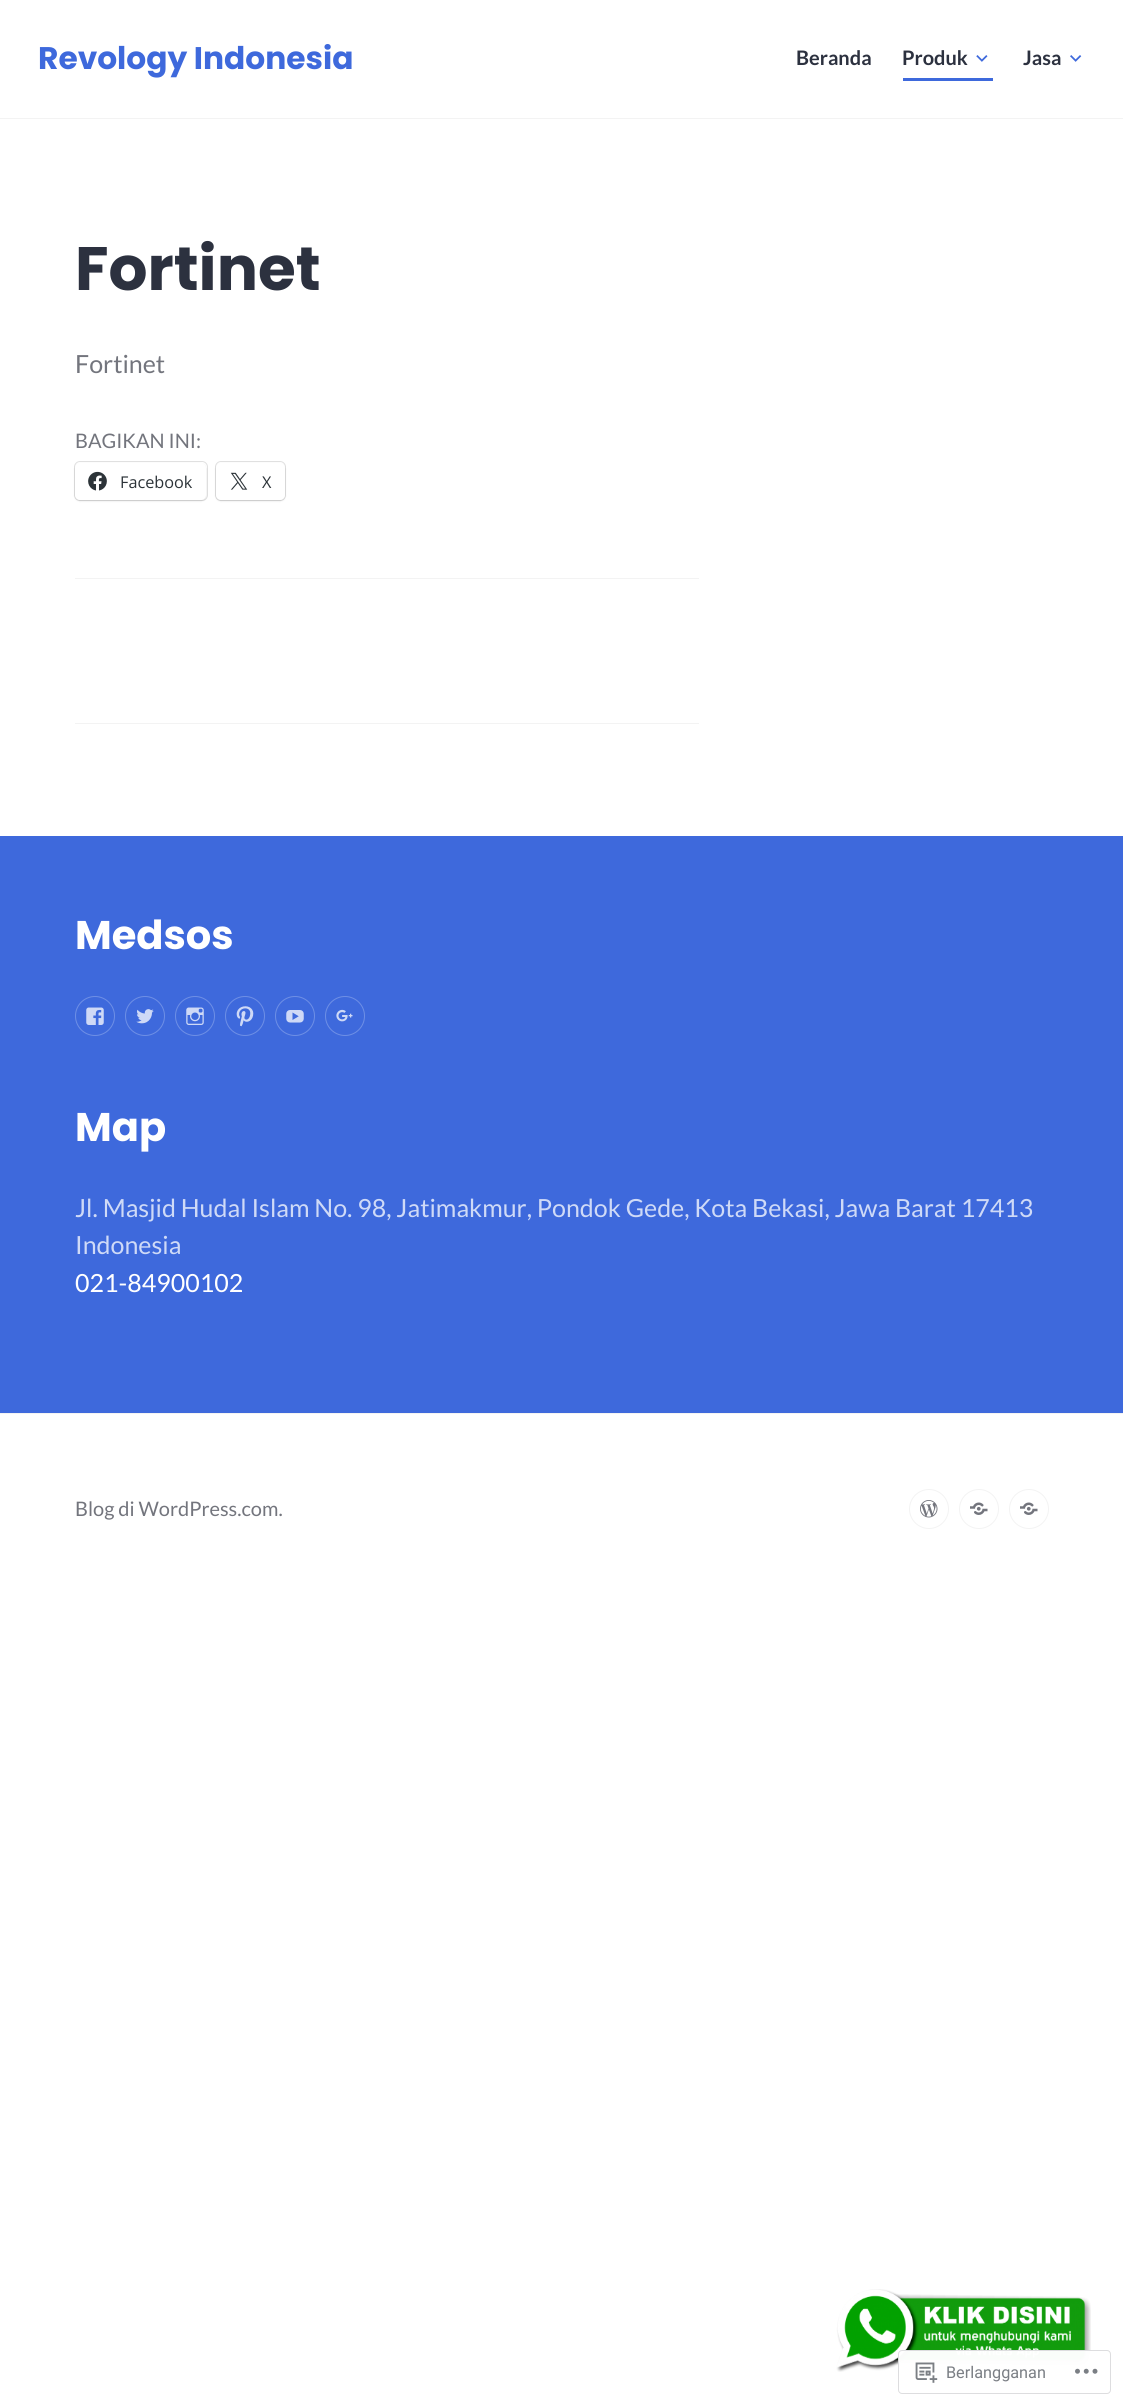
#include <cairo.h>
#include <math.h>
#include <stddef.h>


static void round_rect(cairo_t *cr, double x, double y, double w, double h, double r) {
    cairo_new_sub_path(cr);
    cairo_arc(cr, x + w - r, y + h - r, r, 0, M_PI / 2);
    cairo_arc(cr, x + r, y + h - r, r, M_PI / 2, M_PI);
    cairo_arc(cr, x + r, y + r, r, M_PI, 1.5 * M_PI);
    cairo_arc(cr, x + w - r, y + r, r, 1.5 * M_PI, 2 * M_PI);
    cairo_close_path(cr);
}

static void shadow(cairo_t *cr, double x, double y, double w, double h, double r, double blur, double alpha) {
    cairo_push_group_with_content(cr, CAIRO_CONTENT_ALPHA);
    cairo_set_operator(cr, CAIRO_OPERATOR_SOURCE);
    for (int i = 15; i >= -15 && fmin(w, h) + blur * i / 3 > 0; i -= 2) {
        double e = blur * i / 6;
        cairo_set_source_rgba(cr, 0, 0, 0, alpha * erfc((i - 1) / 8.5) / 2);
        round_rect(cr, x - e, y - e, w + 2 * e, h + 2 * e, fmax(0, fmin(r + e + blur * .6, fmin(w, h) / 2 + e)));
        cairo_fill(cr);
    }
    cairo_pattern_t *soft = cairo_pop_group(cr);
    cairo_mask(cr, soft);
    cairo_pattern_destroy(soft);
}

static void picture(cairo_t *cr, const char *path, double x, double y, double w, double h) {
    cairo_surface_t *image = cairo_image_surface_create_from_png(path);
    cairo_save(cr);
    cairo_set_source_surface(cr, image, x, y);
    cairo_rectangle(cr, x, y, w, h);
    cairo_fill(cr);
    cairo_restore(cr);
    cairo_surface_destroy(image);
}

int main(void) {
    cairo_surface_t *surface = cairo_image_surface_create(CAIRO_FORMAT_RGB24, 1123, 2406);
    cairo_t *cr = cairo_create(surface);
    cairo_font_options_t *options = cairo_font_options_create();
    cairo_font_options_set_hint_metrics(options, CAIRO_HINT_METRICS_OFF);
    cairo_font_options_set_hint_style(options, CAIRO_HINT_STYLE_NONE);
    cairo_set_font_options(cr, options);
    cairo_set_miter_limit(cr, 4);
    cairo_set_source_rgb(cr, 1, 1, 1);
    cairo_paint(cr);
    cairo_set_source_rgb(cr, 0.953, 0.953, 0.953);
    cairo_rectangle(cr, 0, 118, 1123, 1);
    cairo_fill(cr);
    cairo_select_font_face(cr, "Poppins", CAIRO_FONT_SLANT_NORMAL, CAIRO_FONT_WEIGHT_BOLD);
    cairo_set_font_size(cr, 31.25);
    cairo_set_source_rgb(cr, 0.243, 0.412, 0.863);
    cairo_move_to(cr, 38, 69);
    cairo_show_text(cr, "Revology Indonesia");
    cairo_select_font_face(cr, "Lato", CAIRO_FONT_SLANT_NORMAL, CAIRO_FONT_WEIGHT_BOLD);
    cairo_set_font_size(cr, 20);
    cairo_set_source_rgb(cr, 0.173, 0.192, 0.247);
    cairo_move_to(cr, 796, 65);
    cairo_show_text(cr, "Beranda");
    cairo_set_source_rgb(cr, 0.243, 0.412, 0.863);
    cairo_rectangle(cr, 903, 78, 90, 3);
    cairo_fill(cr);
    cairo_set_source_rgb(cr, 0.173, 0.192, 0.247);
    cairo_move_to(cr, 902, 65);
    cairo_show_text(cr, "Produk");
    picture(cr, "img1.png", 976, 55, 12, 7);
    cairo_move_to(cr, 1023, 65);
    cairo_show_text(cr, "Jasa");
    picture(cr, "img2.png", 1070, 55, 12, 7);
    cairo_select_font_face(cr, "Poppins", CAIRO_FONT_SLANT_NORMAL, CAIRO_FONT_WEIGHT_BOLD);
    cairo_set_font_size(cr, 61.25);
    cairo_move_to(cr, 75, 290);
    cairo_show_text(cr, "Fortinet");
    cairo_select_font_face(cr, "Lato", CAIRO_FONT_SLANT_NORMAL, CAIRO_FONT_WEIGHT_NORMAL);
    cairo_set_font_size(cr, 25);
    cairo_set_source_rgb(cr, 0.451, 0.459, 0.49);
    cairo_move_to(cr, 75, 373);
    cairo_show_text(cr, "Fortinet");
    cairo_set_source_rgb(cr, 0.953, 0.953, 0.953);
    cairo_rectangle(cr, 75, 578, 624, 1);
    cairo_fill(cr);
    cairo_set_font_size(cr, 20);
    cairo_set_source_rgb(cr, 0.451, 0.459, 0.49);
    cairo_move_to(cr, 75, 448);
    cairo_show_text(cr, "BAGIKAN INI:");
    round_rect(cr, 74.5, 461.5, 133, 39, 5.5);
    cairo_set_source_rgb(cr, 0.878, 0.878, 0.878);
    cairo_set_line_width(cr, 1);
    cairo_stroke(cr);
    cairo_set_source_rgb(cr, 0, 0, 0);
    shadow(cr, 75, 464, 131, 37, 5, 1, 0.12);
    cairo_set_source_rgb(cr, 1, 1, 1);
    round_rect(cr, 75, 463, 131, 37, 5);
    cairo_fill(cr);
    picture(cr, "img3.png", 88, 471, 19, 20);
    cairo_select_font_face(cr, "Open Sans", CAIRO_FONT_SLANT_NORMAL, CAIRO_FONT_WEIGHT_NORMAL);
    cairo_set_font_size(cr, 16.25);
    cairo_set_source_rgb(cr, 0.173, 0.2, 0.22);
    cairo_move_to(cr, 120, 488);
    cairo_show_text(cr, "Facebook");
    round_rect(cr, 215.5, 461.5, 70, 39, 5.5);
    cairo_set_source_rgb(cr, 0.878, 0.878, 0.878);
    cairo_stroke(cr);
    cairo_set_source_rgb(cr, 0, 0, 0);
    shadow(cr, 216, 464, 69, 37, 5, 1, 0.12);
    cairo_set_source_rgb(cr, 1, 1, 1);
    round_rect(cr, 216, 463, 69, 37, 5);
    cairo_fill(cr);
    picture(cr, "img4.png", 230, 472, 18, 18);
    cairo_set_source_rgb(cr, 0.173, 0.2, 0.22);
    cairo_move_to(cr, 262, 488);
    cairo_show_text(cr, "X");
    cairo_set_source_rgb(cr, 0.953, 0.953, 0.953);
    cairo_rectangle(cr, 75, 723, 624, 1);
    cairo_fill(cr);
    cairo_set_source_rgb(cr, 0.243, 0.412, 0.863);
    cairo_rectangle(cr, 0, 836, 1123, 577);
    cairo_fill(cr);
    cairo_select_font_face(cr, "Poppins", CAIRO_FONT_SLANT_NORMAL, CAIRO_FONT_WEIGHT_BOLD);
    cairo_set_font_size(cr, 40);
    cairo_set_source_rgb(cr, 1, 1, 1);
    cairo_move_to(cr, 75, 949);
    cairo_show_text(cr, "Medsos");
    cairo_new_path(cr);
    cairo_arc(cr, 95, 1016, 19.5, 0, 2 * M_PI);
    cairo_set_source_rgb(cr, 0.431, 0.561, 0.898);
    cairo_stroke(cr);
    picture(cr, "img5.png", 86, 1007, 18, 18);
    cairo_arc(cr, 145, 1016, 19.5, 0, 2 * M_PI);
    cairo_stroke(cr);
    picture(cr, "img6.png", 136, 1009, 18, 15);
    cairo_arc(cr, 195, 1016, 19.5, 0, 2 * M_PI);
    cairo_stroke(cr);
    picture(cr, "img7.png", 186, 1007, 18, 18);
    cairo_arc(cr, 245, 1016, 19.5, 0, 2 * M_PI);
    cairo_stroke(cr);
    picture(cr, "img8.png", 236, 1006, 18, 21);
    cairo_arc(cr, 295, 1016, 19.5, 0, 2 * M_PI);
    cairo_stroke(cr);
    picture(cr, "img9.png", 286, 1010, 18, 13);
    cairo_arc(cr, 345, 1016, 19.5, 0, 2 * M_PI);
    cairo_stroke(cr);
    picture(cr, "img10.png", 336, 1009, 17, 13);
    cairo_set_source_rgb(cr, 1, 1, 1);
    cairo_move_to(cr, 75, 1141);
    cairo_show_text(cr, "Map");
    cairo_select_font_face(cr, "Lato", CAIRO_FONT_SLANT_NORMAL, CAIRO_FONT_WEIGHT_NORMAL);
    cairo_set_font_size(cr, 25);
    cairo_set_source_rgb(cr, 0.812, 0.855, 0.965);
    cairo_move_to(cr, 75, 1217);
    cairo_show_text(cr, "Jl. Masjid Hudal Islam No. 98, Jatimakmur, Pondok Gede, Kota Bekasi, Jawa Barat 17413");
    cairo_move_to(cr, 75, 1254);
    cairo_show_text(cr, "Indonesia");
    cairo_set_source_rgb(cr, 1, 1, 1);
    cairo_move_to(cr, 75, 1292);
    cairo_show_text(cr, "021-84900102");
    picture(cr, "img11.png", 836, 2289, 255, 83);
    cairo_set_source_rgb(cr, 0.953, 0.953, 0.953);
    cairo_rectangle(cr, 0, 1413, 1123, 1);
    cairo_fill(cr);
    cairo_set_font_size(cr, 20);
    cairo_set_source_rgb(cr, 0.451, 0.459, 0.49);
    cairo_move_to(cr, 75, 1516);
    cairo_show_text(cr, "Blog di WordPress.com.");
    cairo_new_path(cr);
    cairo_arc(cr, 929, 1509, 19.5, 0, 2 * M_PI);
    cairo_set_source_rgb(cr, 0.953, 0.953, 0.953);
    cairo_stroke(cr);
    picture(cr, "img12.png", 920, 1500, 18, 18);
    cairo_arc(cr, 979, 1509, 19.5, 0, 2 * M_PI);
    cairo_stroke(cr);
    picture(cr, "img13.png", 970, 1502, 18, 13);
    cairo_arc(cr, 1029, 1509, 19.5, 0, 2 * M_PI);
    cairo_stroke(cr);
    picture(cr, "img13.png", 1020, 1502, 18, 13);
    cairo_set_source_rgba(cr, 1, 1, 1, 0.98);
    round_rect(cr, 898, 2350, 213, 44, 4);
    cairo_fill(cr);
    round_rect(cr, 898.5, 2350.5, 212, 43, 3.5);
    cairo_set_source_rgba(cr, 0.863, 0.863, 0.871, 0.98);
    cairo_stroke(cr);
    picture(cr, "img14.png", 915, 2362, 23, 21);
    cairo_select_font_face(cr, "Roboto", CAIRO_FONT_SLANT_NORMAL, CAIRO_FONT_WEIGHT_NORMAL);
    cairo_set_font_size(cr, 16.25);
    cairo_set_source_rgb(cr, 0.482, 0.498, 0.522);
    cairo_move_to(cr, 946, 2378);
    cairo_show_text(cr, "Berlangganan");
    picture(cr, "img15.png", 1075, 2368, 23, 6);
    cairo_surface_write_to_png(surface, "page.png");
    cairo_font_options_destroy(options);
    cairo_destroy(cr);
    cairo_surface_destroy(surface);
    return 0;
}
